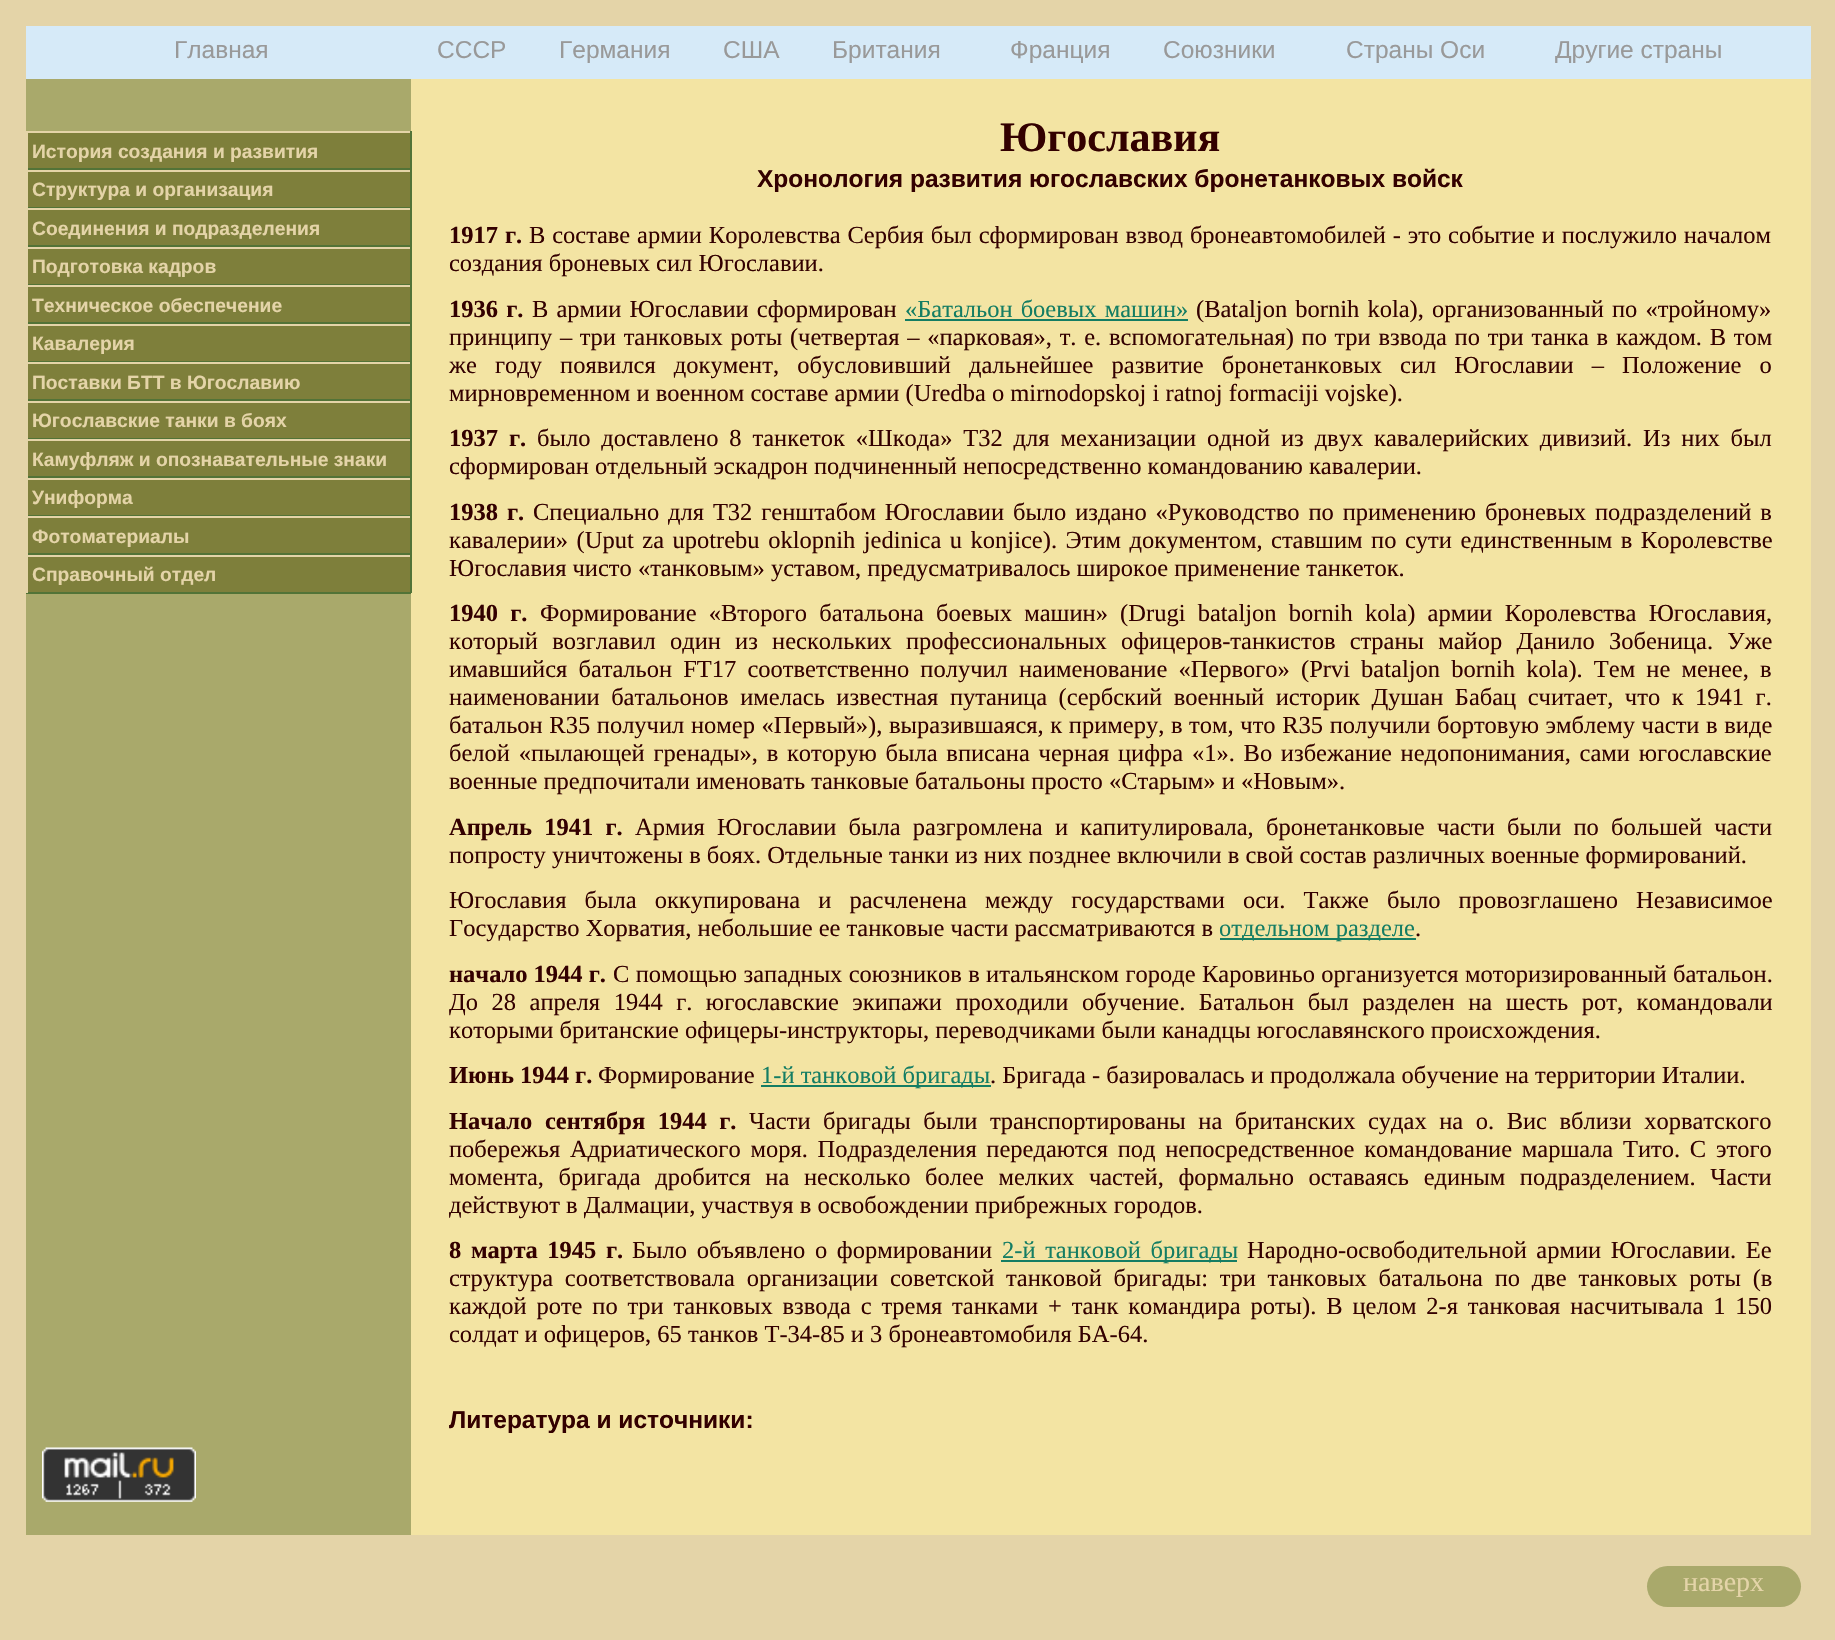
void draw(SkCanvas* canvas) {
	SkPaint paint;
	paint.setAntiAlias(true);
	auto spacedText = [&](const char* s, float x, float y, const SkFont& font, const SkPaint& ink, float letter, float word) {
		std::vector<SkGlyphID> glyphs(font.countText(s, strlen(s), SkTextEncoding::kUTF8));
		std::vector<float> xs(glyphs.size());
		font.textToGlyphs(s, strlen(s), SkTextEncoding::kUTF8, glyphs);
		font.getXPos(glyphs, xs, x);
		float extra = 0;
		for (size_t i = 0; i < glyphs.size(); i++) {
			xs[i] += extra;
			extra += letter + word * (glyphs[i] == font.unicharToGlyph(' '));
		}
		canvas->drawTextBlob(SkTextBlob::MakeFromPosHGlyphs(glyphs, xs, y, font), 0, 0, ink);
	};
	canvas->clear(0xffe4d4a8);
	paint.setColor(0xffd6eaf8);
	canvas->drawRect(SkRect::MakeXYWH(26, 26, 1785, 53), paint);
	SkFont f1(fontMgr->matchFamilyStyle("Liberation Sans", SkFontStyle::Normal()), 24.5);
	f1.setSubpixel(true);
	paint.setColor(0xff999999);
	canvas->drawString("Главная", 174, 58, f1, paint);
	canvas->drawString("СССР", 437, 58, f1, paint);
	canvas->drawString("Германия", 559, 58, f1, paint);
	canvas->drawString("США", 723, 58, f1, paint);
	canvas->drawString("Британия", 832, 58, f1, paint);
	canvas->drawString("Франция", 1010, 58, f1, paint);
	canvas->drawString("Союзники", 1163, 58, f1, paint);
	canvas->drawString("Страны Оси", 1346, 58, f1, paint);
	canvas->drawString("Другие страны", 1555, 58, f1, paint);
	paint.setColor(0xffa9a96b);
	canvas->drawRect(SkRect::MakeXYWH(26, 79, 385, 1456), paint);
	paint.setColor(0xff7e7f3b);
	canvas->drawRect(SkRect::MakeXYWH(28, 133, 382, 35), paint);
	paint.setColor(0xffe4d4a8);
	canvas->drawRect(SkRect::MakeXYWH(26, 131, 385, 2), paint);
	paint.setColor(0xfff3e4a3);
	canvas->drawRect(SkRect::MakeXYWH(411, 79, 1400, 1456), paint);
	paint.setColor(0xff527337);
	canvas->drawRect(SkRect::MakeXYWH(410, 131, 2, 39), paint);
	canvas->drawRect(SkRect::MakeXYWH(26, 168, 385, 2), paint);
	paint.setColor(0xffe4d4a8);
	canvas->drawRect(SkRect::MakeXYWH(26, 131, 2, 39), paint);
	SkFont f2(fontMgr->matchFamilyStyle("Liberation Sans", SkFontStyle::Bold()), 19.25);
	f2.setSubpixel(true);
	canvas->drawString("История создания и развития", 32, 158, f2, paint);
	paint.setColor(0xff7e7f3b);
	canvas->drawRect(SkRect::MakeXYWH(28, 172, 382, 35), paint);
	paint.setColor(0xffe4d4a8);
	canvas->drawRect(SkRect::MakeXYWH(26, 170, 385, 2), paint);
	paint.setColor(0xff527337);
	canvas->drawRect(SkRect::MakeXYWH(410, 170, 2, 38), paint);
	canvas->drawRect(SkRect::MakeXYWH(26, 207, 385, 1), paint);
	paint.setColor(0xffe4d4a8);
	canvas->drawRect(SkRect::MakeXYWH(26, 170, 2, 38), paint);
	canvas->drawString("Структура и организация", 32, 196, f2, paint);
	paint.setColor(0xff7e7f3b);
	canvas->drawRect(SkRect::MakeXYWH(28, 210, 382, 35), paint);
	paint.setColor(0xffe4d4a8);
	canvas->drawRect(SkRect::MakeXYWH(26, 208, 385, 2), paint);
	paint.setColor(0xff527337);
	canvas->drawRect(SkRect::MakeXYWH(410, 208, 2, 39), paint);
	canvas->drawRect(SkRect::MakeXYWH(26, 245, 385, 2), paint);
	paint.setColor(0xffe4d4a8);
	canvas->drawRect(SkRect::MakeXYWH(26, 208, 2, 39), paint);
	canvas->drawString("Соединения и подразделения", 32, 235, f2, paint);
	paint.setColor(0xff7e7f3b);
	canvas->drawRect(SkRect::MakeXYWH(28, 249, 382, 35), paint);
	paint.setColor(0xffe4d4a8);
	canvas->drawRect(SkRect::MakeXYWH(26, 247, 385, 2), paint);
	paint.setColor(0xff527337);
	canvas->drawRect(SkRect::MakeXYWH(410, 247, 2, 38), paint);
	canvas->drawRect(SkRect::MakeXYWH(26, 284, 385, 1), paint);
	paint.setColor(0xffe4d4a8);
	canvas->drawRect(SkRect::MakeXYWH(26, 247, 2, 38), paint);
	canvas->drawString("Подготовка кадров", 32, 273, f2, paint);
	paint.setColor(0xff7e7f3b);
	canvas->drawRect(SkRect::MakeXYWH(28, 287, 382, 35), paint);
	paint.setColor(0xffe4d4a8);
	canvas->drawRect(SkRect::MakeXYWH(26, 285, 385, 2), paint);
	paint.setColor(0xff527337);
	canvas->drawRect(SkRect::MakeXYWH(410, 285, 2, 39), paint);
	canvas->drawRect(SkRect::MakeXYWH(26, 322, 385, 2), paint);
	paint.setColor(0xffe4d4a8);
	canvas->drawRect(SkRect::MakeXYWH(26, 285, 2, 39), paint);
	canvas->drawString("Техническое обеспечение", 32, 312, f2, paint);
	paint.setColor(0xff7e7f3b);
	canvas->drawRect(SkRect::MakeXYWH(28, 326, 382, 35), paint);
	paint.setColor(0xffe4d4a8);
	canvas->drawRect(SkRect::MakeXYWH(26, 324, 385, 2), paint);
	paint.setColor(0xff527337);
	canvas->drawRect(SkRect::MakeXYWH(410, 324, 2, 38), paint);
	canvas->drawRect(SkRect::MakeXYWH(26, 361, 385, 1), paint);
	paint.setColor(0xffe4d4a8);
	canvas->drawRect(SkRect::MakeXYWH(26, 324, 2, 38), paint);
	canvas->drawString("Кавалерия", 32, 350, f2, paint);
	paint.setColor(0xff7e7f3b);
	canvas->drawRect(SkRect::MakeXYWH(28, 364, 382, 35), paint);
	paint.setColor(0xffe4d4a8);
	canvas->drawRect(SkRect::MakeXYWH(26, 362, 385, 2), paint);
	paint.setColor(0xff527337);
	canvas->drawRect(SkRect::MakeXYWH(410, 362, 2, 39), paint);
	canvas->drawRect(SkRect::MakeXYWH(26, 399, 385, 2), paint);
	paint.setColor(0xffe4d4a8);
	canvas->drawRect(SkRect::MakeXYWH(26, 362, 2, 39), paint);
	canvas->drawString("Поставки БТТ в Югославию", 32, 389, f2, paint);
	paint.setColor(0xff7e7f3b);
	canvas->drawRect(SkRect::MakeXYWH(28, 403, 382, 35), paint);
	paint.setColor(0xffe4d4a8);
	canvas->drawRect(SkRect::MakeXYWH(26, 401, 385, 2), paint);
	paint.setColor(0xff527337);
	canvas->drawRect(SkRect::MakeXYWH(410, 401, 2, 38), paint);
	canvas->drawRect(SkRect::MakeXYWH(26, 438, 385, 1), paint);
	paint.setColor(0xffe4d4a8);
	canvas->drawRect(SkRect::MakeXYWH(26, 401, 2, 38), paint);
	canvas->drawString("Югославские танки в боях", 32, 427, f2, paint);
	paint.setColor(0xff7e7f3b);
	canvas->drawRect(SkRect::MakeXYWH(28, 441, 382, 35), paint);
	paint.setColor(0xffe4d4a8);
	canvas->drawRect(SkRect::MakeXYWH(26, 439, 385, 2), paint);
	paint.setColor(0xff527337);
	canvas->drawRect(SkRect::MakeXYWH(410, 439, 2, 39), paint);
	canvas->drawRect(SkRect::MakeXYWH(26, 476, 385, 2), paint);
	paint.setColor(0xffe4d4a8);
	canvas->drawRect(SkRect::MakeXYWH(26, 439, 2, 39), paint);
	canvas->drawString("Камуфляж и опознавательные знаки", 32, 466, f2, paint);
	paint.setColor(0xff7e7f3b);
	canvas->drawRect(SkRect::MakeXYWH(28, 480, 382, 35), paint);
	paint.setColor(0xffe4d4a8);
	canvas->drawRect(SkRect::MakeXYWH(26, 478, 385, 2), paint);
	paint.setColor(0xff527337);
	canvas->drawRect(SkRect::MakeXYWH(410, 478, 2, 38), paint);
	canvas->drawRect(SkRect::MakeXYWH(26, 515, 385, 1), paint);
	paint.setColor(0xffe4d4a8);
	canvas->drawRect(SkRect::MakeXYWH(26, 478, 2, 38), paint);
	canvas->drawString("Униформа", 32, 504, f2, paint);
	paint.setColor(0xff7e7f3b);
	canvas->drawRect(SkRect::MakeXYWH(28, 518, 382, 35), paint);
	paint.setColor(0xffe4d4a8);
	canvas->drawRect(SkRect::MakeXYWH(26, 516, 385, 2), paint);
	paint.setColor(0xff527337);
	canvas->drawRect(SkRect::MakeXYWH(410, 516, 2, 39), paint);
	canvas->drawRect(SkRect::MakeXYWH(26, 553, 385, 2), paint);
	paint.setColor(0xffe4d4a8);
	canvas->drawRect(SkRect::MakeXYWH(26, 516, 2, 39), paint);
	canvas->drawString("Фотоматериалы", 32, 543, f2, paint);
	paint.setColor(0xff7e7f3b);
	canvas->drawRect(SkRect::MakeXYWH(28, 557, 382, 35), paint);
	paint.setColor(0xffe4d4a8);
	canvas->drawRect(SkRect::MakeXYWH(26, 555, 385, 2), paint);
	paint.setColor(0xff527337);
	canvas->drawRect(SkRect::MakeXYWH(410, 555, 2, 38), paint);
	canvas->drawRect(SkRect::MakeXYWH(26, 592, 385, 2), paint);
	paint.setColor(0xffe4d4a8);
	canvas->drawRect(SkRect::MakeXYWH(26, 555, 2, 38), paint);
	canvas->drawString("Справочный отдел", 32, 581, f2, paint);
	SkFont f3(fontMgr->matchFamilyStyle("Liberation Serif", SkFontStyle::Bold()), 42);
	f3.setSubpixel(true);
	paint.setColor(0xff330000);
	canvas->drawString("Югославия", 1000, 151, f3, paint);
	SkFont f4(fontMgr->matchFamilyStyle("Liberation Sans", SkFontStyle::Bold()), 24.5);
	f4.setSubpixel(true);
	canvas->drawString("Хронология развития югославских бронетанковых войск", 757, 187, f4, paint);
	SkFont f5(fontMgr->matchFamilyStyle("Liberation Serif", SkFontStyle::Bold()), 24.5);
	f5.setSubpixel(true);
	spacedText("1917 г.", 449, 243, f5, paint, 0, 0.75);
	SkFont f6(fontMgr->matchFamilyStyle("Liberation Serif", SkFontStyle::Normal()), 24.5);
	f6.setSubpixel(true);
	spacedText("В составе армии Королевства Сербия был сформирован взвод бронеавтомобилей - это событие и послужило началом", 529, 243, f6, paint, 0, 0.75);
	canvas->drawString("создания броневых сил Югославии.", 449, 271, f6, paint);
	spacedText("1936 г.", 449, 317, f5, paint, 0, 2);
	spacedText("В армии Югославии сформирован", 532, 317, f6, paint, 0, 2);
	paint.setColor(0xff147d63);
	spacedText("«Батальон боевых машин»", 905, 317, f6, paint, 0, 2);
	canvas->drawRect(SkRect::MakeXYWH(905, 319, 283, 2), paint);
	paint.setColor(0xff330000);
	spacedText("(Вataljon bornih kola), организованный по «тройному»", 1196, 317, f6, paint, 0, 2);
	spacedText("принципу – три танковых роты (четвертая – «парковая», т. е. вспомогательная) по три взвода по три танка в каждом. В том", 449, 345, f6, paint, 0, 1.6);
	spacedText("же году появился документ, обусловивший дальнейшее развитие бронетанковых сил Югославии – Положение о", 449, 373, f6, paint, 0, 12);
	canvas->drawString("мирновременном и военном составе армии (Uredba o mirnodopskoj i ratnoj formaciji vojske).", 449, 401, f6, paint);
	spacedText("1937 г.", 449, 446, f5, paint, 0, 4.75);
	spacedText("было доставлено 8 танкеток «Шкода» Т32 для механизации одной из двух кавалерийских дивизий. Из них был", 537, 446, f6, paint, 0, 4.75);
	canvas->drawString("сформирован отдельный эскадрон подчиненный непосредственно командованию кавалерии.", 449, 474, f6, paint);
	spacedText("1938 г.", 449, 520, f5, paint, 0, 2.75);
	spacedText("Специально для Т32 генштабом Югославии было издано «Руководство по применению броневых подразделений в", 533, 520, f6, paint, 0, 2.75);
	spacedText("кавалерии» (Uput za upotrebu oklopnih jedinica u konjice). Этим документом, ставшим по сути единственным в Королевстве", 449, 548, f6, paint, 0, 2.4);
	canvas->drawString("Югославия чисто «танковым» уставом, предусматривалось широкое применение танкеток.", 449, 576, f6, paint);
	spacedText("1940 г.", 449, 621, f5, paint, 0, 6.1);
	spacedText("Формирование «Второго батальона боевых машин» (Drugi bataljon bornih kola) армии Королевства Югославия,", 540, 621, f6, paint, 0, 6.1);
	spacedText("который возглавил один из нескольких профессиональных офицеров-танкистов страны майор Данило Зобеница. Уже", 449, 649, f6, paint, 0, 8.1);
	spacedText("имавшийся батальон FT17 соответственно получил наименование «Первого» (Prvi bataljon bornih kola). Тем не менее, в", 449, 677, f6, paint, 0, 5);
	spacedText("наименовании батальонов имелась известная путаница (сербский военный историк Душан Бабац считает, что к 1941 г.", 449, 705, f6, paint, 0, 5.4);
	spacedText("батальон R35 получил номер «Первый»), выразившаяся, к примеру, в том, что R35 получили бортовую эмблему части в виде", 449, 733, f6, paint, 0, 0.5);
	spacedText("белой «пылающей гренады», в которую была вписана черная цифра «1». Во избежание недопонимания, сами югославские", 449, 761, f6, paint, 0, 2.6);
	canvas->drawString("военные предпочитали именовать танковые батальоны просто «Старым» и «Новым».", 449, 789, f6, paint);
	spacedText("Апрель 1941 г.", 449, 835, f5, paint, 0, 6.1);
	spacedText("Армия Югославии была разгромлена и капитулировала, бронетанковые части были по большей части", 635, 835, f6, paint, 0, 6.1);
	canvas->drawString("попросту уничтожены в боях. Отдельные танки из них позднее включили в свой состав различных военные формирований.", 449, 863, f6, paint);
	spacedText("Югославия была оккупирована и расчленена между государствами оси. Также было провозглашено Независимое", 449, 908, f6, paint, 0, 12);
	canvas->drawString("Государство Хорватия, небольшие ее танковые части рассматриваются в", 449, 936, f6, paint);
	paint.setColor(0xff147d63);
	canvas->drawRect(SkRect::MakeXYWH(1220, 938, 196, 2), paint);
	canvas->drawString("отдельном разделе", 1219, 936, f6, paint);
	paint.setColor(0xff330000);
	canvas->drawString(".", 1415, 936, f6, paint);
	canvas->drawString("начало 1944 г.", 449, 982, f5, paint);
	spacedText("С помощью западных союзников в итальянском городе Каровиньо организуется моторизированный батальон.", 613, 982, f6, paint, 0, 0.25);
	spacedText("До 28 апреля 1944 г. югославские экипажи проходили обучение. Батальон был разделен на шесть рот, командовали", 449, 1010, f6, paint, 0, 7.4);
	canvas->drawString("которыми британские офицеры-инструкторы, переводчиками были канадцы югославянского происхождения.", 449, 1038, f6, paint);
	canvas->drawString("Июнь 1944 г.", 449, 1083, f5, paint);
	canvas->drawString("Формирование", 598, 1083, f6, paint);
	paint.setColor(0xff147d63);
	canvas->drawRect(SkRect::MakeXYWH(761, 1085, 230, 2), paint);
	canvas->drawString("1-й танковой бригады", 761, 1083, f6, paint);
	paint.setColor(0xff330000);
	canvas->drawString(". Бригада - базировалась и продолжала обучение на территории Италии.", 990, 1083, f6, paint);
	spacedText("Начало сентября 1944 г.", 449, 1129, f5, paint, 0, 6.4);
	spacedText("Части бригады были транспортированы на британских судах на о. Вис вблизи хорватского", 749, 1129, f6, paint, 0, 6.4);
	spacedText("побережья Адриатического моря. Подразделения передаются под непосредственное командование маршала Тито. С этого", 449, 1157, f6, paint, 0, 3.6);
	spacedText("момента, бригада дробится на несколько более мелких частей, формально оставаясь единым подразделением. Части", 449, 1185, f6, paint, 0, 8.5);
	canvas->drawString("действуют в Далмации, участвуя в освобождении прибрежных городов.", 449, 1213, f6, paint);
	spacedText("8 марта 1945 г.", 449, 1258, f5, paint, 0, 3.5);
	spacedText("Было объявлено о формировании", 632, 1258, f6, paint, 0, 3.5);
	paint.setColor(0xff147d63);
	canvas->drawRect(SkRect::MakeXYWH(1001, 1260, 236, 2), paint);
	spacedText("2-й танковой бригады", 1002, 1258, f6, paint, 0, 3.5);
	paint.setColor(0xff330000);
	spacedText("Народно-освободительной армии Югославии. Ее", 1247, 1258, f6, paint, 0, 3.5);
	spacedText("структура соответствовала организации советской танковой бригады: три танковых батальона по две танковых роты (в", 449, 1286, f6, paint, 0, 5.6);
	spacedText("каждой роте по три танковых взвода с тремя танками + танк командира роты). В целом 2-я танковая насчитывала 1 150", 449, 1314, f6, paint, 0, 3.75);
	canvas->drawString("солдат и офицеров, 65 танков Т-34-85 и 3 бронеавтомобиля БА-64.", 449, 1342, f6, paint);
	canvas->drawString("Литература и источники:", 449, 1428, f4, paint);
	canvas->drawImageRect(SkImages::DeferredFromEncodedData(SkData::MakeFromFileName("img1.png")), SkRect::MakeXYWH(42, 1447, 154, 55), SkSamplingOptions());
	paint.setColor(0xffa9a96b);
	canvas->drawRoundRect(SkRect::MakeXYWH(1647, 1566, 154, 41), 20.5, 20.5, paint);
	SkFont f7(fontMgr->matchFamilyStyle("Liberation Serif", SkFontStyle::Normal()), 28);
	f7.setSubpixel(true);
	paint.setColor(0xffe4d4a8);
	canvas->drawString("наверх", 1683, 1591, f7, paint);
}
